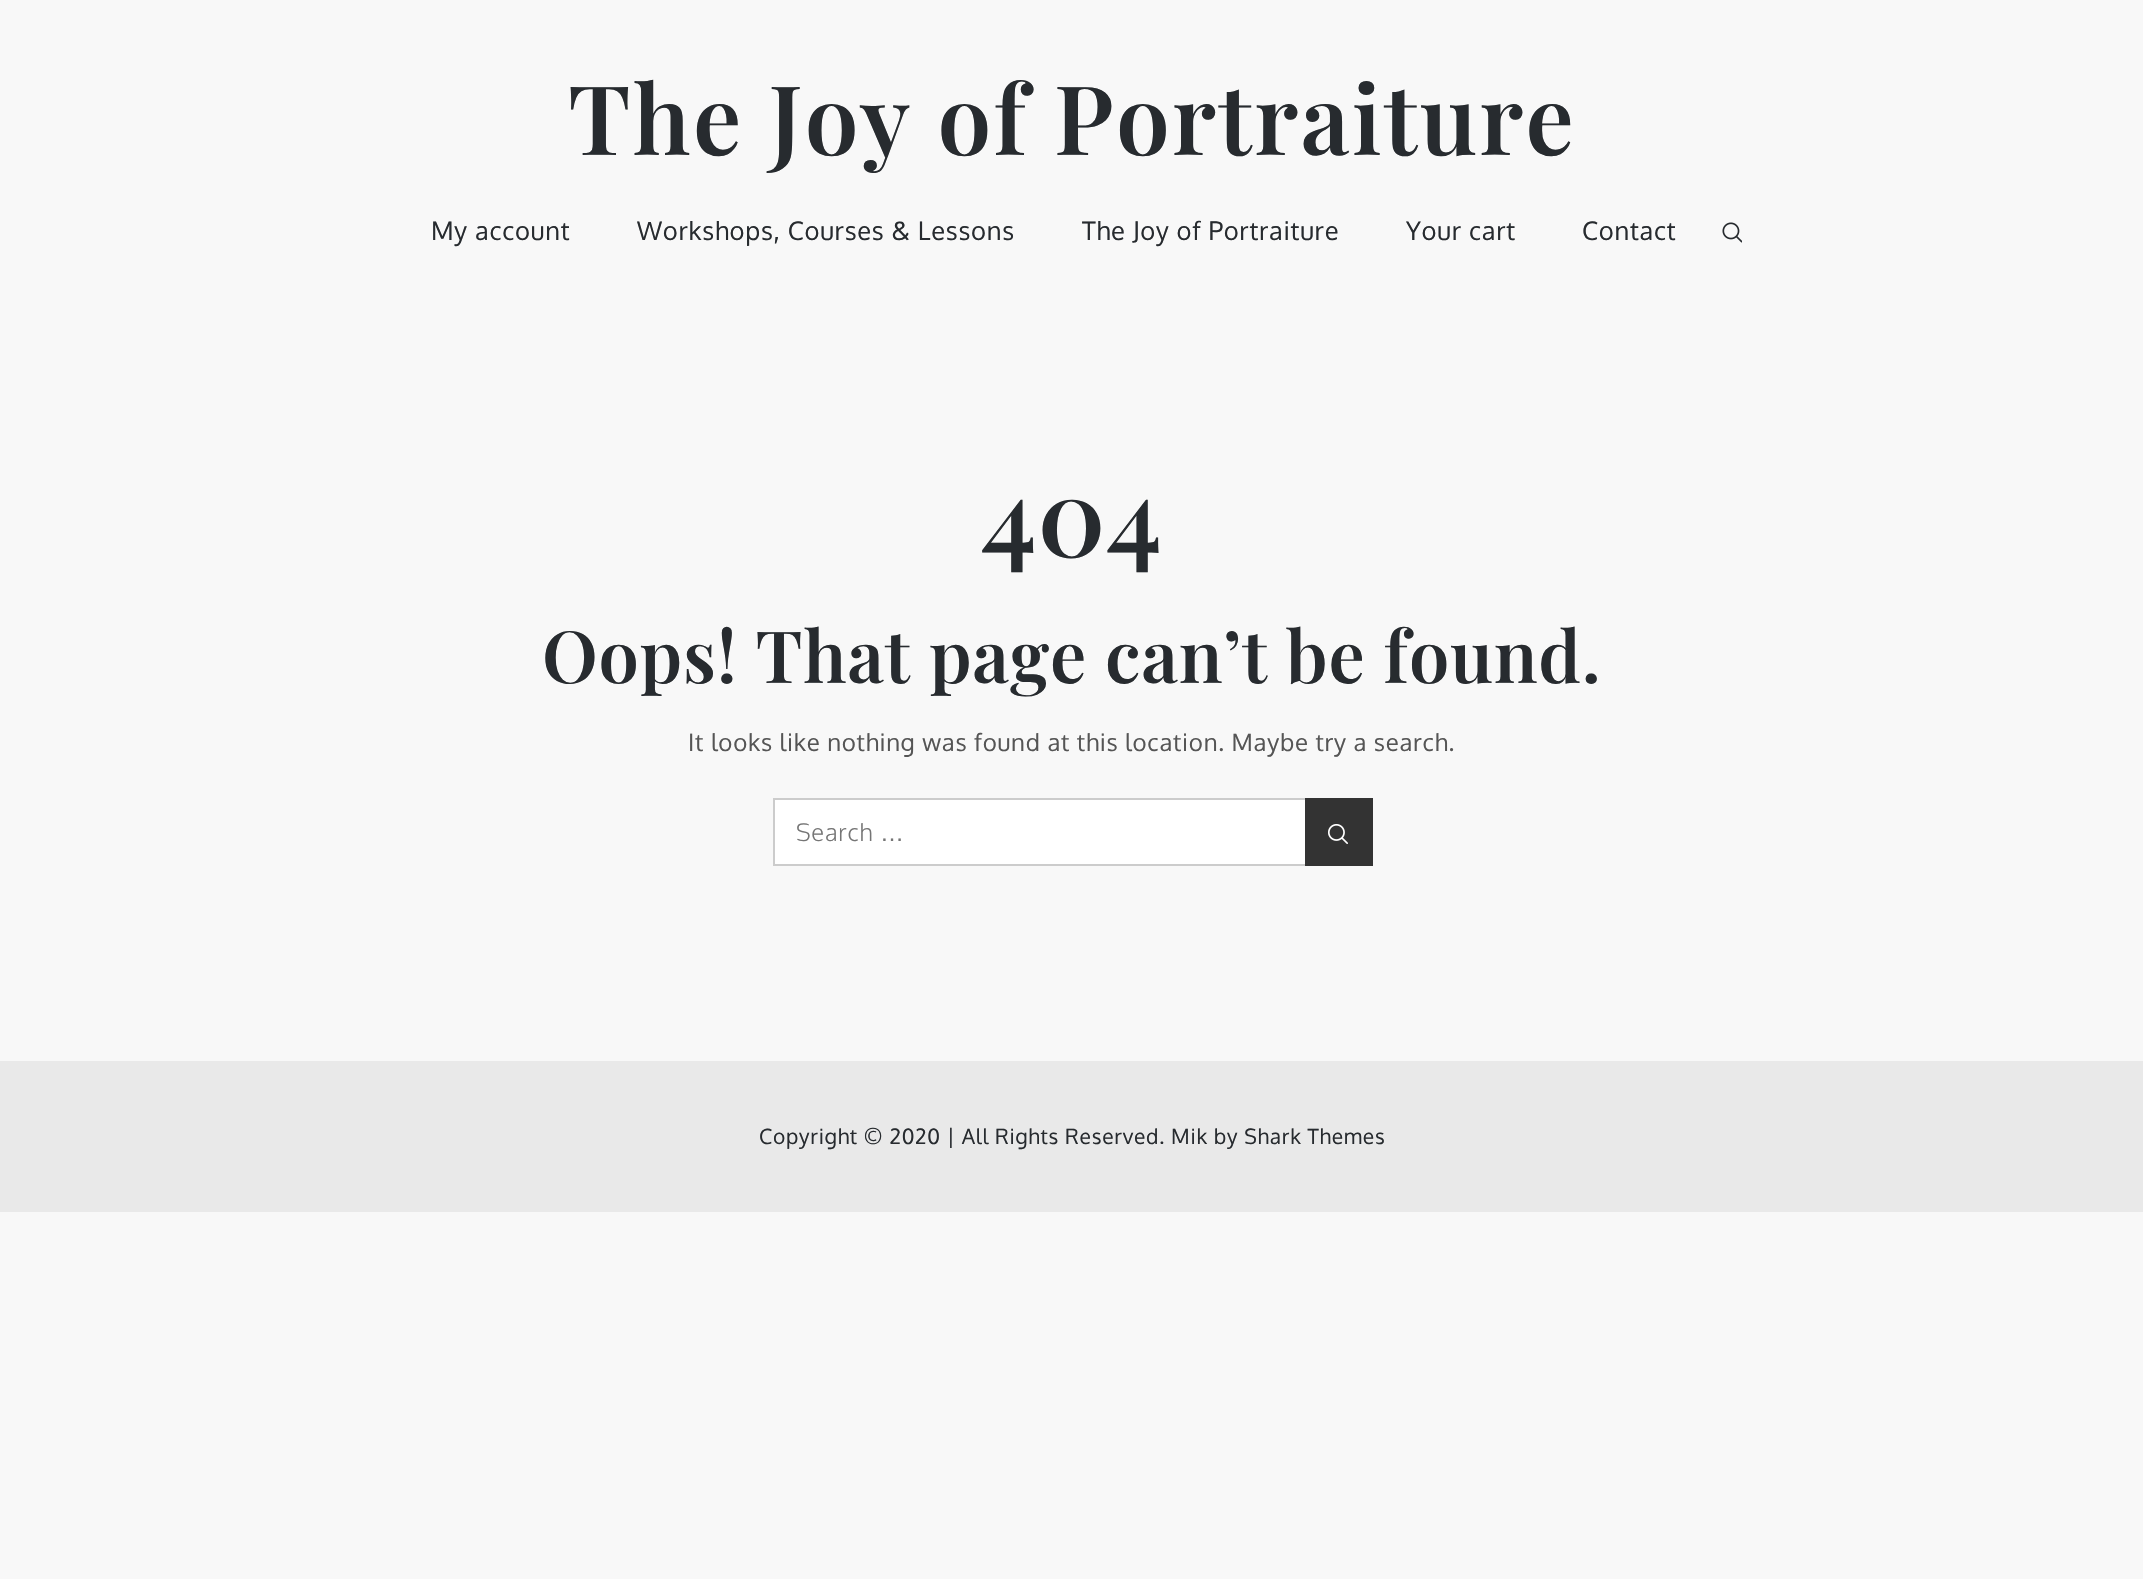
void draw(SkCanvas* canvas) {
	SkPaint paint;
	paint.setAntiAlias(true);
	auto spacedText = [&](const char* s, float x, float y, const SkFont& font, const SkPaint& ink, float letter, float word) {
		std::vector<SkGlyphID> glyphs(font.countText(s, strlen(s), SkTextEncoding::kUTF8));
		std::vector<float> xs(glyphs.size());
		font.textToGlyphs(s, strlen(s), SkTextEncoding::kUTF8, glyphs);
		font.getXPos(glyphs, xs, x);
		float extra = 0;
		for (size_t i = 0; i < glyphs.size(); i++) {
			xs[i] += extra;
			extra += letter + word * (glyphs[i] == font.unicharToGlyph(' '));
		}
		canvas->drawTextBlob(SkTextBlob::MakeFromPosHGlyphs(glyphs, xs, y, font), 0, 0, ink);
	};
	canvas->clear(0xfff8f8f8);
	SkFont f1(fontMgr->matchFamilyStyle("Playfair Display", SkFontStyle(600, SkFontStyle::kNormal_Width, SkFontStyle::kUpright_Slant)), 96);
	f1.setSubpixel(true);
	paint.setColor(0xff272b2f);
	spacedText("The Joy of Portraiture", 568, 155, f1, paint, 2.25, 0);
	SkFont f2(fontMgr->matchFamilyStyle("Oxygen", SkFontStyle::Normal()), 25.5);
	f2.setSubpixel(true);
	spacedText("My account", 431, 240, f2, paint, 0.75, 0);
	spacedText("Workshops, Courses & Lessons", 637, 240, f2, paint, 0.75, 0);
	spacedText("The Joy of Portraiture", 1082, 240, f2, paint, 0.75, 0);
	spacedText("Your cart", 1406, 240, f2, paint, 0.75, 0);
	spacedText("Contact", 1582, 240, f2, paint, 0.75, 0);
	canvas->drawImageRect(SkImages::DeferredFromEncodedData(SkData::MakeFromFileName("img1.png")), SkRect::MakeXYWH(1722, 222, 20, 21), SkSamplingOptions());
	SkFont f3(fontMgr->matchFamilyStyle("Playfair Display", SkFontStyle(600, SkFontStyle::kNormal_Width, SkFontStyle::kUpright_Slant)), 108);
	f3.setSubpixel(true);
	spacedText("404", 981, 557, f3, paint, 0.75, 0);
	SkFont f4(fontMgr->matchFamilyStyle("Playfair Display", SkFontStyle(600, SkFontStyle::kNormal_Width, SkFontStyle::kUpright_Slant)), 72);
	f4.setSubpixel(true);
	spacedText("Oops! That page can’t be found.", 542, 683, f4, paint, 0.75, 0);
	SkFont f5(fontMgr->matchFamilyStyle("Oxygen", SkFontStyle::Normal()), 24);
	f5.setSubpixel(true);
	paint.setColor(0xff555555);
	spacedText("It looks like nothing was found at this location. Maybe try a search.", 688, 751, f5, paint, 0.75, 0);
	paint.setColor(0xffffffff);
	canvas->drawRect(SkRect::MakeXYWH(775, 800, 530, 64), paint);
	paint.setStroke(true);
	paint.setStrokeWidth(2);
	paint.setColor(0xffcccccc);
	canvas->drawRect(SkRect::MakeXYWH(774, 799, 598, 66), paint);
	SkFont f6(fontMgr->matchFamilyStyle("Oxygen", SkFontStyle(300, SkFontStyle::kNormal_Width, SkFontStyle::kUpright_Slant)), 24);
	f6.setSubpixel(true);
	paint.setStroke(false);
	paint.setColor(0xff757575);
	spacedText("Search", 796, 841, f6, paint, 0.75, 0);
	SkFont f7(fontMgr->matchFamilyStyle("Liberation Sans", SkFontStyle::Normal()), 24);
	f7.setSubpixel(true);
	spacedText("…", 880, 841, f7, paint, 0.75, 0);
	paint.setColor(0xff333333);
	canvas->drawRect(SkRect::MakeXYWH(1305, 798, 68, 68), paint);
	canvas->drawImageRect(SkImages::DeferredFromEncodedData(SkData::MakeFromFileName("img2.png")), SkRect::MakeXYWH(1328, 824, 20, 20), SkSamplingOptions());
	paint.setColor(0xffe9e9e9);
	canvas->drawRect(SkRect::MakeXYWH(0, 1061, 2143, 151), paint);
	SkFont f8(fontMgr->matchFamilyStyle("Oxygen", SkFontStyle::Normal()), 21);
	f8.setSubpixel(true);
	paint.setColor(0xff272b2f);
	spacedText("Copyright © 2020 | All Rights Reserved. Mik by Shark Themes", 759, 1144, f8, paint, 0.75, 0);
}
